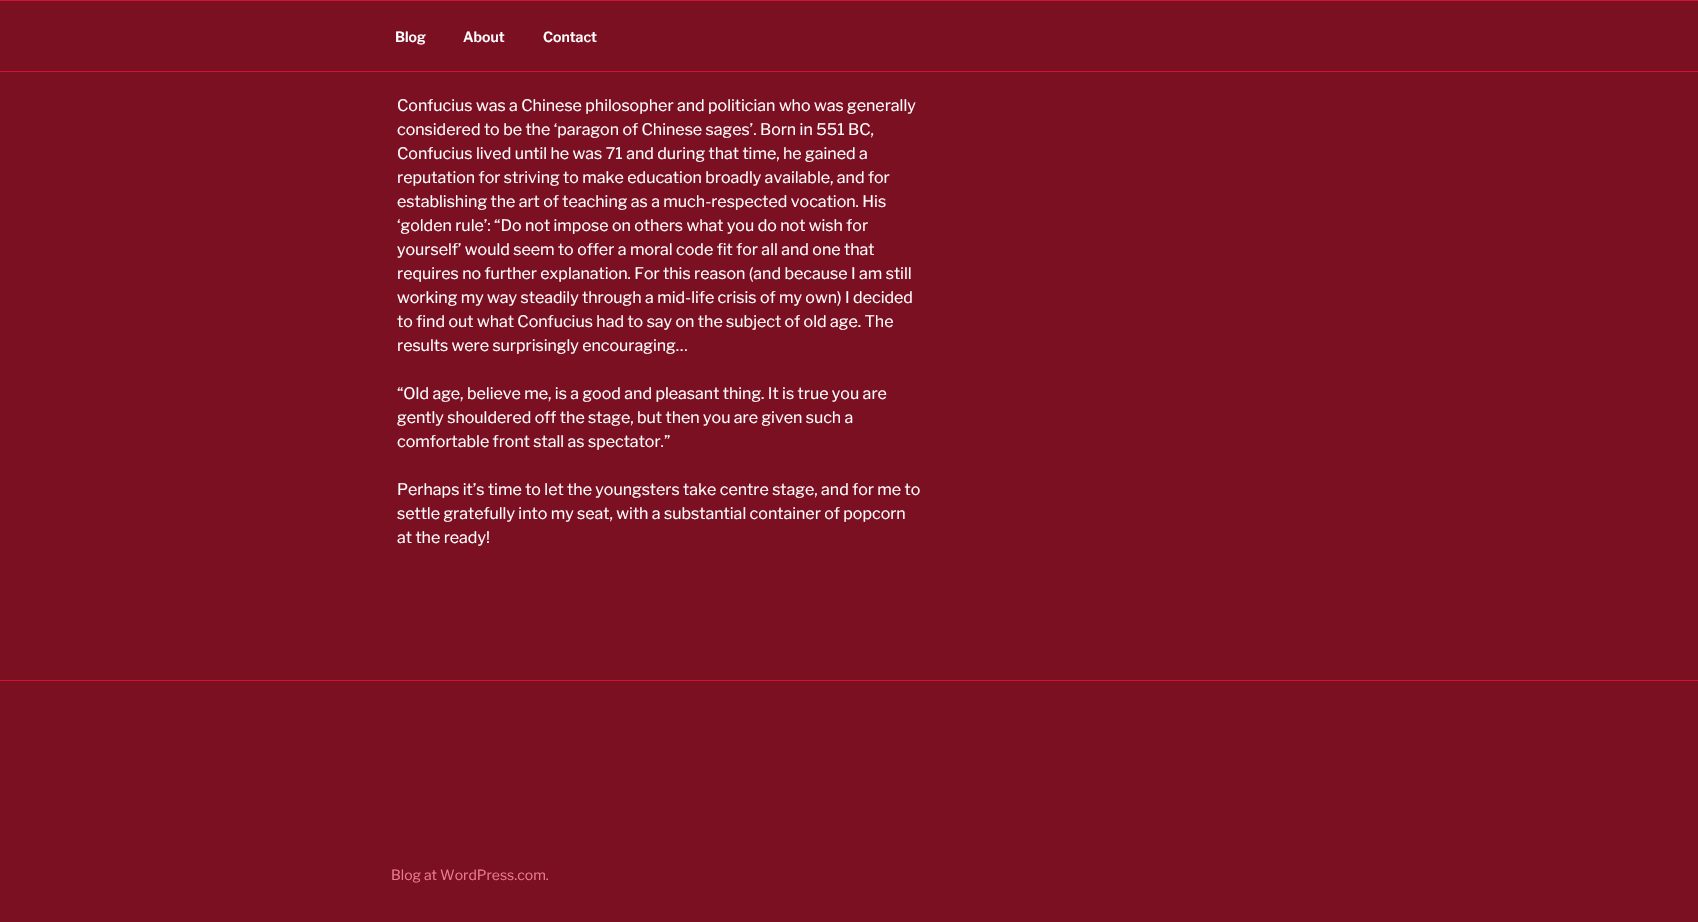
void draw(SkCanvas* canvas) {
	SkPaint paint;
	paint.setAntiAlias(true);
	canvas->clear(0xff7b1023);
	paint.setColor(0xffd41134);
	canvas->drawRect(SkRect::MakeXYWH(0, 0, 1698, 1), paint);
	canvas->drawRect(SkRect::MakeXYWH(0, 71, 1698, 1), paint);
	SkFont f1(fontMgr->matchFamilyStyle("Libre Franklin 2", SkFontStyle(100, SkFontStyle::kNormal_Width, SkFontStyle::kUpright_Slant)), 14);
	f1.setSubpixel(true);
	paint.setColor(0xffffffff);
	canvas->drawString("Blog", 395, 42, f1, paint);
	canvas->drawString("About", 463, 42, f1, paint);
	canvas->drawString("Contact", 543, 42, f1, paint);
	SkFont f2(fontMgr->matchFamilyStyle("Libre Franklin", SkFontStyle(100, SkFontStyle::kNormal_Width, SkFontStyle::kUpright_Slant)), 16);
	f2.setSubpixel(true);
	canvas->drawString("Confucius was a Chinese philosopher and politician who was generally", 397, 111, f2, paint);
	canvas->drawString("considered to be the ‘paragon of Chinese sages’. Born in 551 BC,", 397, 135, f2, paint);
	canvas->drawString("Confucius lived until he was 71 and during that time, he gained a", 397, 159, f2, paint);
	canvas->drawString("reputation for striving to make education broadly available, and for", 397, 183, f2, paint);
	canvas->drawString("establishing the art of teaching as a much-respected vocation. His", 397, 207, f2, paint);
	canvas->drawString("‘golden rule’: “Do not impose on others what you do not wish for", 397, 231, f2, paint);
	canvas->drawString("yourself’ would seem to offer a moral code fit for all and one that", 397, 255, f2, paint);
	canvas->drawString("requires no further explanation. For this reason (and because I am still", 397, 279, f2, paint);
	canvas->drawString("working my way steadily through a mid-life crisis of my own) I decided", 397, 303, f2, paint);
	canvas->drawString("to find out what Confucius had to say on the subject of old age. The", 397, 327, f2, paint);
	canvas->drawString("results were surprisingly encouraging…", 397, 351, f2, paint);
	canvas->drawString("“Old age, believe me, is a good and pleasant thing. It is true you are", 397, 399, f2, paint);
	canvas->drawString("gently shouldered off the stage, but then you are given such a", 397, 423, f2, paint);
	canvas->drawString("comfortable front stall as spectator.”", 397, 447, f2, paint);
	canvas->drawString("Perhaps it’s time to let the youngsters take centre stage, and for me to", 397, 495, f2, paint);
	canvas->drawString("settle gratefully into my seat, with a substantial container of popcorn", 397, 519, f2, paint);
	canvas->drawString("at the ready!", 397, 543, f2, paint);
	paint.setColor(0xffd41134);
	canvas->drawRect(SkRect::MakeXYWH(0, 680, 1698, 1), paint);
	SkFont f3(fontMgr->matchFamilyStyle("Libre Franklin", SkFontStyle(100, SkFontStyle::kNormal_Width, SkFontStyle::kUpright_Slant)), 14);
	f3.setSubpixel(true);
	paint.setColor(0xffee7b8e);
	canvas->drawString("Blog at WordPress.com.", 391, 880, f3, paint);
}
